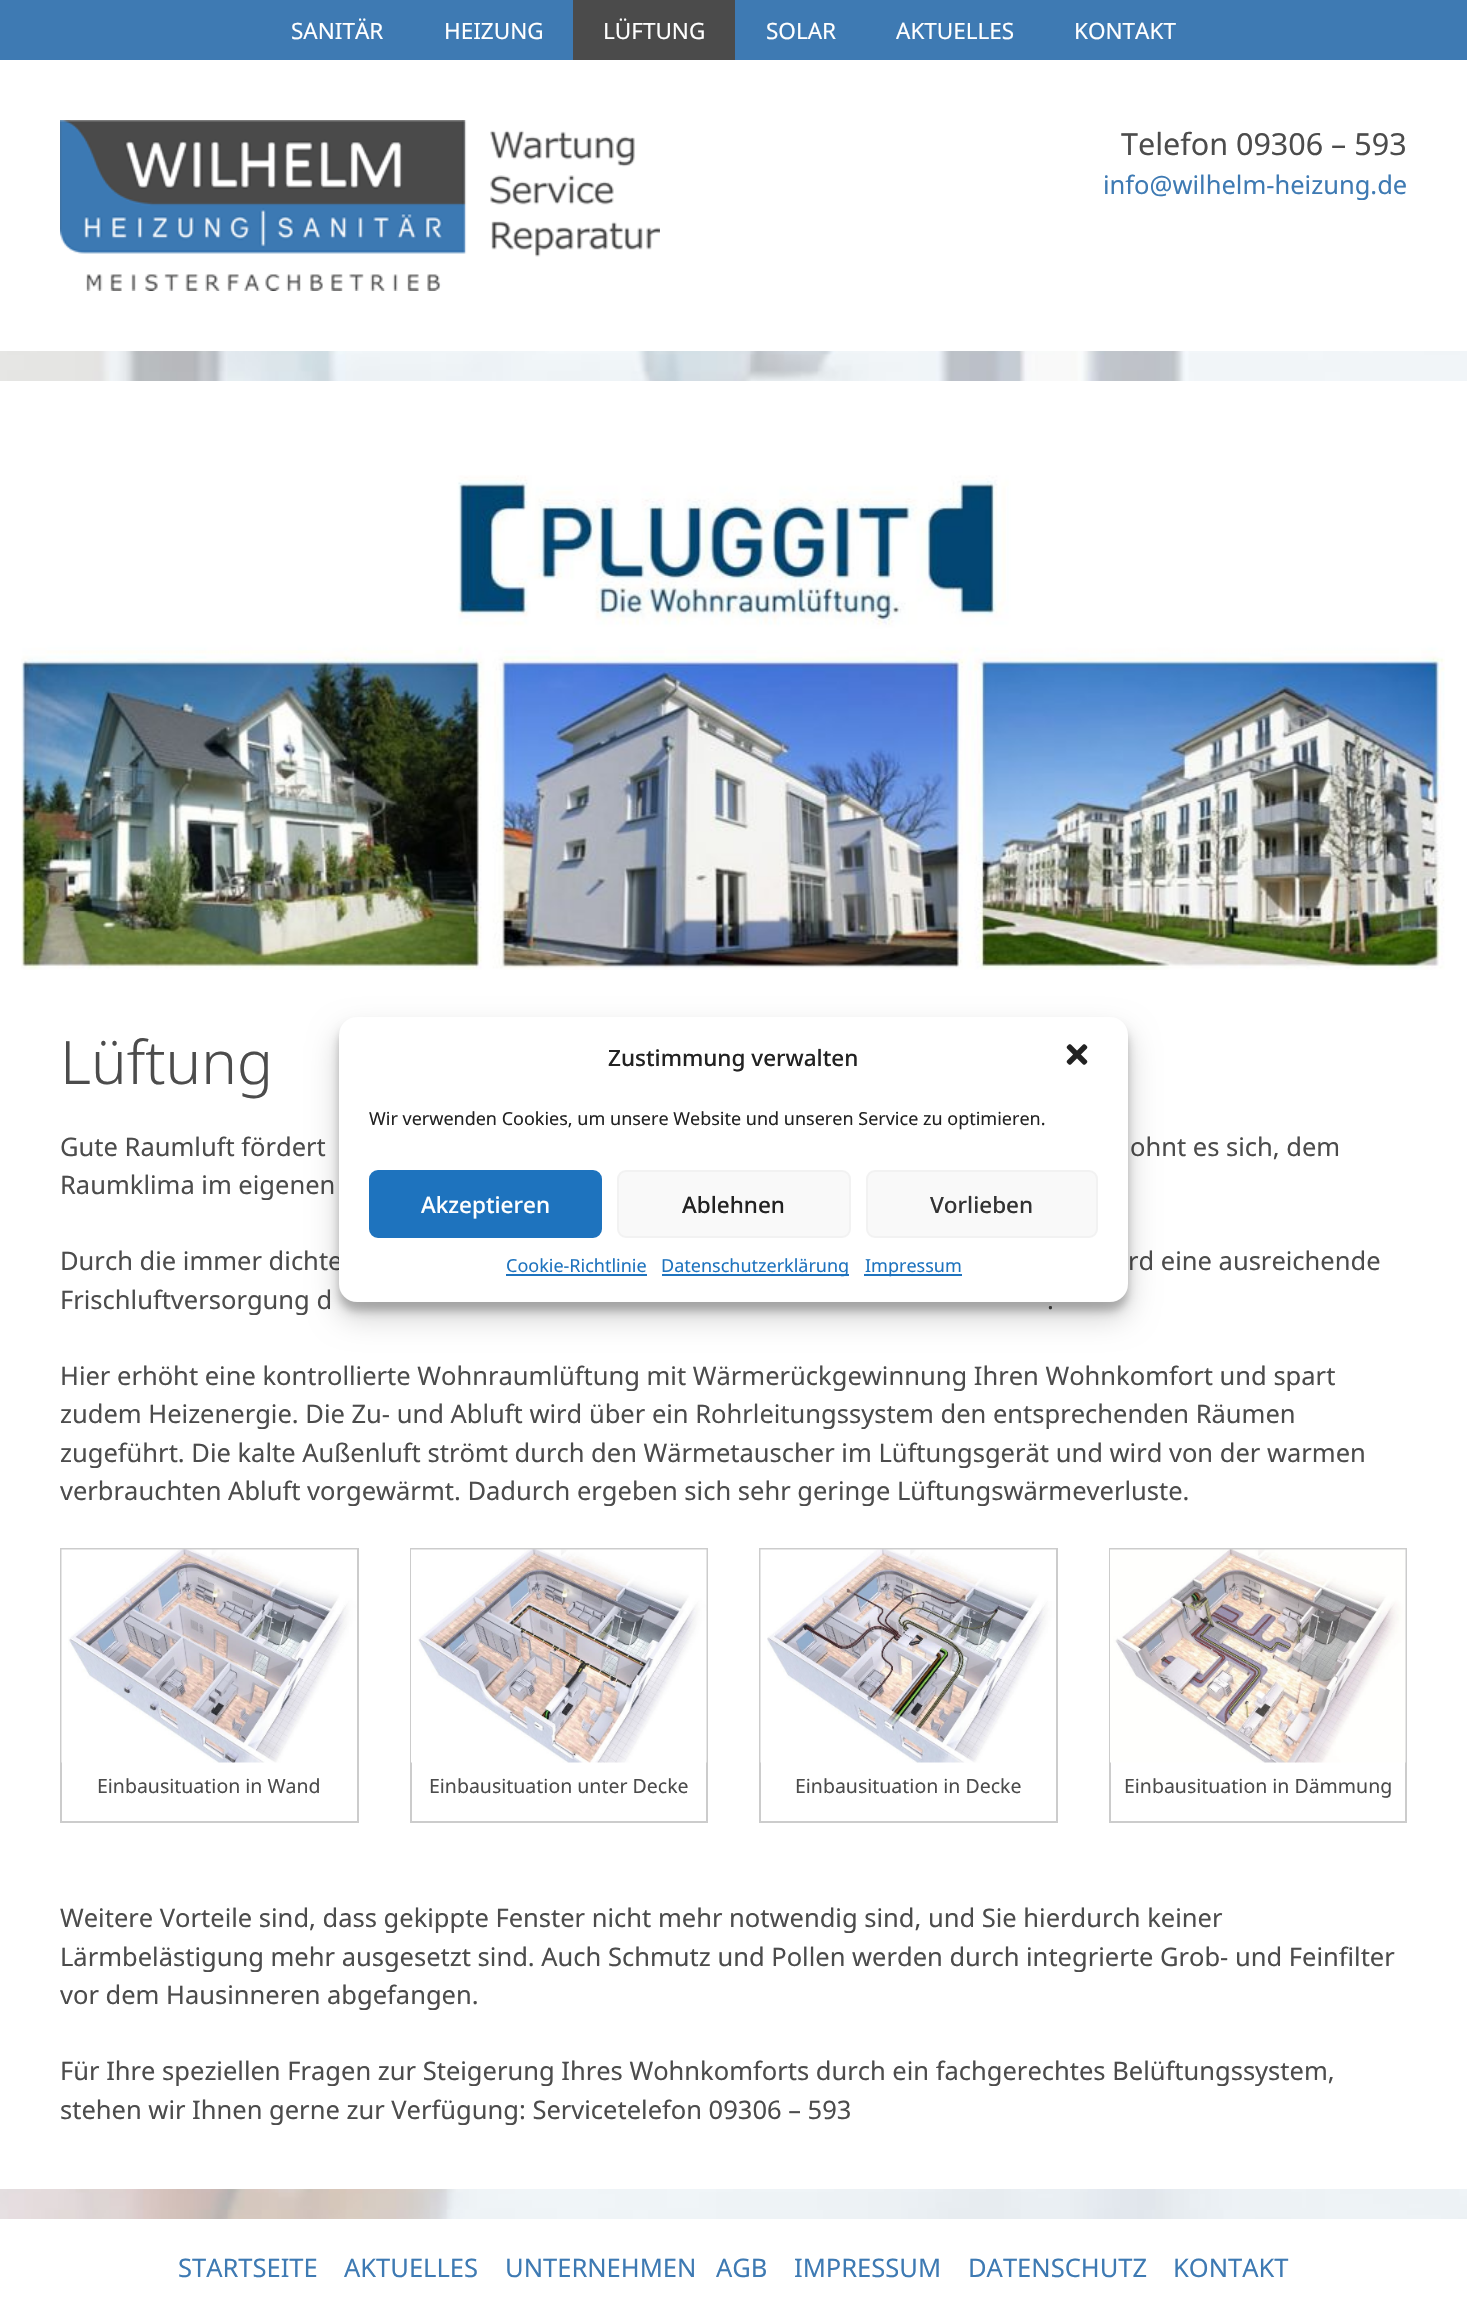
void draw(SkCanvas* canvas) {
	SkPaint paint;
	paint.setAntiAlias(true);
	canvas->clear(0xffffffff);
	canvas->drawImageRect(SkImages::DeferredFromEncodedData(SkData::MakeFromFileName("img1.png")), SkRect::MakeXYWH(0, 351, 1467, 1868), SkSamplingOptions());
	paint.setColor(0xff3e7ab3);
	canvas->drawRect(SkRect::MakeXYWH(0, 0, 1467, 60), paint);
	SkFont f1(fontMgr->matchFamilyStyle("Noto Sans", SkFontStyle::Normal()), 22.5);
	f1.setSubpixel(true);
	paint.setColor(0xffffffff);
	canvas->drawString("SANITÄR", 291, 39, f1, paint);
	canvas->drawString("HEIZUNG", 444, 39, f1, paint);
	paint.setColor(0xff4b4b4b);
	canvas->drawRect(SkRect::MakeXYWH(573, 0, 162, 60), paint);
	paint.setColor(0xffffffff);
	canvas->drawString("LÜFTUNG", 603, 39, f1, paint);
	canvas->drawString("SOLAR", 766, 39, f1, paint);
	canvas->drawString("AKTUELLES", 896, 39, f1, paint);
	canvas->drawString("KONTAKT", 1074, 39, f1, paint);
	canvas->drawImageRect(SkImages::DeferredFromEncodedData(SkData::MakeFromFileName("img2.png")), SkRect::MakeXYWH(60, 120, 600, 171), SkSamplingOptions());
	SkFont f2(fontMgr->matchFamilyStyle("Noto Sans", SkFontStyle::Normal()), 30.5);
	f2.setSubpixel(true);
	paint.setColor(0xff4c4c4c);
	canvas->drawString("Telefon 09306 – 593", 1121, 155, f2, paint);
	SkFont f3(fontMgr->matchFamilyStyle("Noto Sans", SkFontStyle::Normal()), 25.5);
	f3.setSubpixel(true);
	paint.setColor(0xff3e7ab3);
	canvas->drawString("info@wilhelm-heizung.de", 1103, 194, f3, paint);
	paint.setColor(0xffffffff);
	canvas->drawRect(SkRect::MakeXYWH(0, 381, 1467, 1808), paint);
	canvas->drawImageRect(SkImages::DeferredFromEncodedData(SkData::MakeFromFileName("img3.png")), SkRect::MakeXYWH(21, 475, 1424, 495), SkSamplingOptions());
	SkFont f4(fontMgr->matchFamilyStyle("Noto Sans", SkFontStyle(300, SkFontStyle::kNormal_Width, SkFontStyle::kUpright_Slant)), 60);
	f4.setSubpixel(true);
	paint.setColor(0xff4c4c4c);
	canvas->drawString("Lüftung", 60, 1084, f4, paint);
	canvas->drawString("Gute Raumluft fördert", 60, 1156, f3, paint);
	canvas->drawString("ohnt es sich, dem", 1130, 1156, f3, paint);
	canvas->drawString("Raumklima im eigenen", 60, 1194, f3, paint);
	canvas->drawString("Durch die immer dichte", 60, 1270, f3, paint);
	canvas->drawString("rd eine ausreichende", 1128, 1270, f3, paint);
	canvas->drawString("Frischluftversorgung d", 60, 1309, f3, paint);
	canvas->drawString(".", 1047, 1309, f3, paint);
	canvas->drawString("Hier erhöht eine kontrollierte Wohnraumlüftung mit Wärmerückgewinnung Ihren Wohnkomfort und spart", 60, 1385, f3, paint);
	canvas->drawString("zudem Heizenergie. Die Zu- und Abluft wird über ein Rohrleitungssystem den entsprechenden Räumen", 60, 1423, f3, paint);
	canvas->drawString("zugeführt. Die kalte Außenluft strömt durch den Wärmetauscher im Lüftungsgerät und wird von der warmen", 60, 1462, f3, paint);
	canvas->drawString("verbrauchten Abluft vorgewärmt. Dadurch ergeben sich sehr geringe Lüftungswärmeverluste.", 60, 1500, f3, paint);
	paint.setStroke(true);
	paint.setStrokeWidth(2);
	paint.setColor(0xffcccccc);
	canvas->drawRect(SkRect::MakeXYWH(61, 1549, 297, 273), paint);
	canvas->drawImageRect(SkImages::DeferredFromEncodedData(SkData::MakeFromFileName("img4.png")), SkRect::MakeXYWH(61, 1549, 296, 214), SkSamplingOptions());
	SkFont f5(fontMgr->matchFamilyStyle("Noto Sans", SkFontStyle::Normal()), 19.5);
	f5.setSubpixel(true);
	paint.setStroke(false);
	paint.setColor(0xff4c4c4c);
	canvas->drawString("Einbausituation in Wand", 97, 1793, f5, paint);
	paint.setStroke(true);
	paint.setColor(0xffcccccc);
	canvas->drawRect(SkRect::MakeXYWH(411, 1549, 296, 273), paint);
	canvas->drawImageRect(SkImages::DeferredFromEncodedData(SkData::MakeFromFileName("img5.png")), SkRect::MakeXYWH(411, 1549, 296, 214), SkSamplingOptions());
	paint.setStroke(false);
	paint.setColor(0xff4c4c4c);
	canvas->drawString("Einbausituation unter Decke", 429, 1793, f5, paint);
	paint.setStroke(true);
	paint.setColor(0xffcccccc);
	canvas->drawRect(SkRect::MakeXYWH(760, 1549, 297, 273), paint);
	canvas->drawImageRect(SkImages::DeferredFromEncodedData(SkData::MakeFromFileName("img6.png")), SkRect::MakeXYWH(760, 1549, 296, 214), SkSamplingOptions());
	paint.setStroke(false);
	paint.setColor(0xff4c4c4c);
	canvas->drawString("Einbausituation in Decke", 795, 1793, f5, paint);
	paint.setStroke(true);
	paint.setColor(0xffcccccc);
	canvas->drawRect(SkRect::MakeXYWH(1110, 1549, 296, 273), paint);
	canvas->drawImageRect(SkImages::DeferredFromEncodedData(SkData::MakeFromFileName("img7.png")), SkRect::MakeXYWH(1110, 1549, 296, 214), SkSamplingOptions());
	paint.setStroke(false);
	paint.setColor(0xff4c4c4c);
	canvas->drawString("Einbausituation in Dämmung", 1124, 1793, f5, paint);
	canvas->drawString("Weitere Vorteile sind, dass gekippte Fenster nicht mehr notwendig sind, und Sie hierdurch keiner", 60, 1927, f3, paint);
	canvas->drawString("Lärmbelästigung mehr ausgesetzt sind. Auch Schmutz und Pollen werden durch integrierte Grob- und Feinfilter", 60, 1966, f3, paint);
	canvas->drawString("vor dem Hausinneren abgefangen.", 60, 2004, f3, paint);
	canvas->drawString("Für Ihre speziellen Fragen zur Steigerung Ihres Wohnkomforts durch ein fachgerechtes Belüftungssystem,", 60, 2080, f3, paint);
	canvas->drawString("stehen wir Ihnen gerne zur Verfügung: Servicetelefon 09306 – 593", 60, 2119, f3, paint);
	paint.setColor(0x3b000000);
	paint.setMaskFilter(SkMaskFilter::MakeBlur(kNormal_SkBlurStyle, 4.5));
	canvas->drawRoundRect(SkRect::MakeXYWH(339, 1026, 789, 285), 18, 18, paint);
	paint.setMaskFilter(nullptr);
	paint.setColor(0x30000000);
	paint.setMaskFilter(SkMaskFilter::MakeBlur(kNormal_SkBlurStyle, 15));
	canvas->drawRoundRect(SkRect::MakeXYWH(339, 1032, 789, 285), 18, 18, paint);
	paint.setMaskFilter(nullptr);
	paint.setColor(0xffffffff);
	canvas->drawRoundRect(SkRect::MakeXYWH(339, 1017, 789, 285), 18, 18, paint);
	SkFont f6(fontMgr->matchFamilyStyle("Noto Sans", SkFontStyle(500, SkFontStyle::kNormal_Width, SkFontStyle::kUpright_Slant)), 22.5);
	f6.setSubpixel(true);
	paint.setColor(0xff222222);
	canvas->drawString("Zustimmung verwalten", 608, 1066, f6, paint);
	canvas->drawImageRect(SkImages::DeferredFromEncodedData(SkData::MakeFromFileName("img8.png")), SkRect::MakeXYWH(1066, 1044, 22, 21), SkSamplingOptions());
	SkFont f7(fontMgr->matchFamilyStyle("Noto Sans", SkFontStyle::Normal()), 18);
	f7.setSubpixel(true);
	canvas->drawString("Wir verwenden Cookies, um unsere Website und unseren Service zu optimieren.", 369, 1125, f7, paint);
	paint.setColor(0xff1e73be);
	canvas->drawRoundRect(SkRect::MakeXYWH(370, 1171, 231, 66), 8, 8, paint);
	paint.setStroke(true);
	canvas->drawRoundRect(SkRect::MakeXYWH(370, 1171, 231, 66), 8, 8, paint);
	paint.setStroke(false);
	paint.setColor(0xffffffff);
	canvas->drawString("Akzeptieren", 421, 1213, f6, paint);
	paint.setColor(0xfff9f9f9);
	canvas->drawRoundRect(SkRect::MakeXYWH(618, 1171, 232, 66), 8, 8, paint);
	paint.setStroke(true);
	paint.setColor(0xfff2f2f2);
	canvas->drawRoundRect(SkRect::MakeXYWH(618, 1171, 232, 66), 8, 8, paint);
	paint.setStroke(false);
	paint.setColor(0xff222222);
	canvas->drawString("Ablehnen", 682, 1213, f6, paint);
	paint.setColor(0xfff9f9f9);
	canvas->drawRoundRect(SkRect::MakeXYWH(867, 1171, 230, 66), 8, 8, paint);
	paint.setStroke(true);
	paint.setColor(0xfff2f2f2);
	canvas->drawRoundRect(SkRect::MakeXYWH(867, 1171, 230, 66), 8, 8, paint);
	paint.setStroke(false);
	paint.setColor(0xff333333);
	canvas->drawString("Vorlieben", 930, 1213, f6, paint);
	paint.setColor(0xff1e73be);
	canvas->drawString("Cookie-Richtlinie", 506, 1272, f7, paint);
	canvas->drawRect(SkRect::MakeXYWH(506, 1274, 141, 2), paint);
	canvas->drawRect(SkRect::MakeXYWH(662, 1274, 187, 2), paint);
	canvas->drawString("Datenschutzerklärung", 661, 1272, f7, paint);
	canvas->drawRect(SkRect::MakeXYWH(864, 1274, 98, 2), paint);
	canvas->drawString("Impressum", 865, 1272, f7, paint);
	paint.setColor(0xff3e7ab3);
	canvas->drawString("STARTSEITE", 178, 2277, f3, paint);
	canvas->drawString("AKTUELLES", 344, 2277, f3, paint);
	canvas->drawString("UNTERNEHMEN", 505, 2277, f3, paint);
	canvas->drawString("AGB", 716, 2277, f3, paint);
	canvas->drawString("IMPRESSUM", 794, 2277, f3, paint);
	canvas->drawString("DATENSCHUTZ", 968, 2277, f3, paint);
	canvas->drawString("KONTAKT", 1173, 2277, f3, paint);
}
